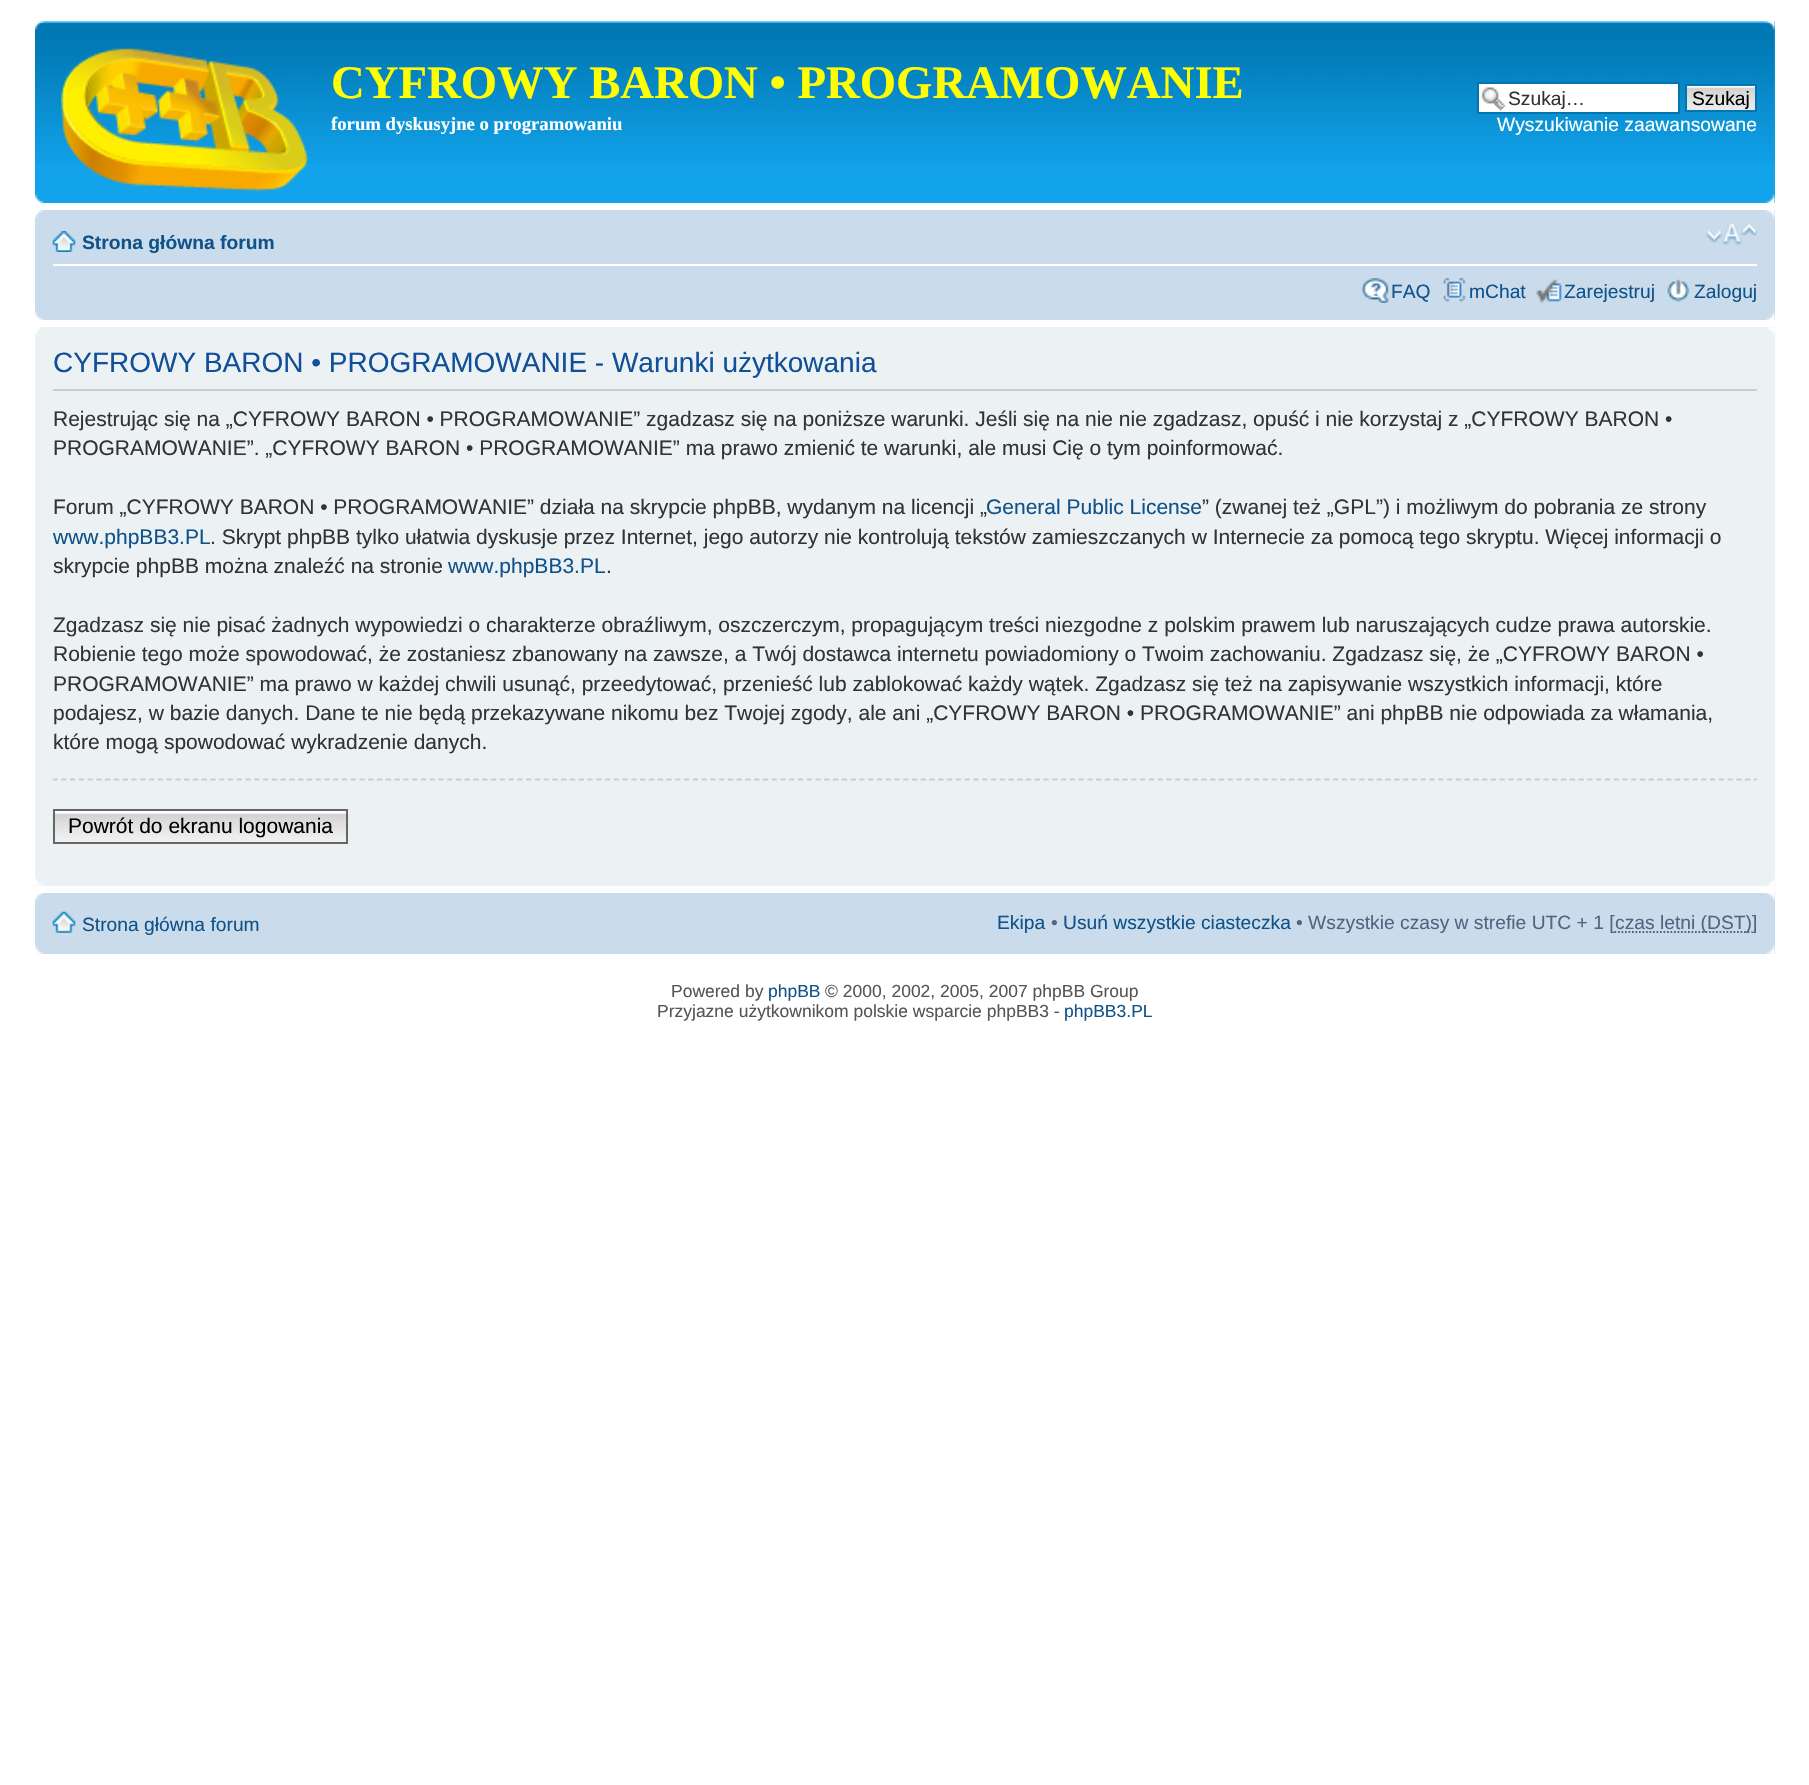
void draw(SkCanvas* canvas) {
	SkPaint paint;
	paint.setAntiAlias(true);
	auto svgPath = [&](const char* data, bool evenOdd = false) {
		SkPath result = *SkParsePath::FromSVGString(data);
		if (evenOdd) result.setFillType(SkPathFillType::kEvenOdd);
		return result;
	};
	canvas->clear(0xffffffff);
	paint.setColor(0xff12a3eb);
	canvas->drawRect(SkRect::MakeXYWH(35, 21, 1740, 182), paint);
	canvas->drawImageRect(SkImages::DeferredFromEncodedData(SkData::MakeFromFileName("img1.png")), SkRect::MakeXYWH(35, 21, 1740, 143), SkSamplingOptions());
	canvas->drawImageRect(SkImages::DeferredFromEncodedData(SkData::MakeFromFileName("img2.png")), SkRect::MakeXYWH(35, 21, 10, 9), SkSamplingOptions());
	canvas->drawImageRect(SkImages::DeferredFromEncodedData(SkData::MakeFromFileName("img3.png")), SkRect::MakeXYWH(1765, 21, 10, 9), SkSamplingOptions());
	canvas->drawImageRect(SkImages::DeferredFromEncodedData(SkData::MakeFromFileName("img4.png")), SkRect::MakeXYWH(61, 48, 247, 143), SkSamplingOptions());
	SkFont f1(fontMgr->matchFamilyStyle("Liberation Serif", SkFontStyle::Bold()), 46.7);
	f1.setSubpixel(true);
	paint.setColor(0xffffff00);
	canvas->drawString("CYFROWY BARON • PROGRAMOWANIE", 331, 98, f1, paint);
	SkFont f2(fontMgr->matchFamilyStyle("Liberation Serif", SkFontStyle::Bold()), 18.7);
	f2.setSubpixel(true);
	paint.setColor(0xffffffff);
	canvas->drawString("forum dyskusyjne o programowaniu", 331, 130, f2, paint);
	canvas->drawRect(SkRect::MakeXYWH(1479, 84, 199, 28), paint);
	canvas->drawImageRect(SkImages::DeferredFromEncodedData(SkData::MakeFromFileName("img5.png")), SkRect::MakeXYWH(1481, 87, 25, 24), SkSamplingOptions());
	paint.setStroke(true);
	paint.setStrokeWidth(2);
	paint.setColor(0xff0075b0);
	canvas->drawRect(SkRect::MakeXYWH(1478, 83, 201, 30), paint);
	SkFont f3(fontMgr->matchFamilyStyle("Liberation Sans", SkFontStyle::Normal()), 19.25);
	f3.setSubpixel(true);
	paint.setStroke(false);
	paint.setColor(0xff333333);
	canvas->drawString("Szukaj…", 1508, 105, f3, paint);
	canvas->drawImageRect(SkImages::DeferredFromEncodedData(SkData::MakeFromFileName("img6.png")), SkRect::MakeXYWH(1687, 86, 68, 24), SkSamplingOptions());
	paint.setStroke(true);
	paint.setColor(0xff0075b0);
	canvas->drawRect(SkRect::MakeXYWH(1686, 85, 70, 26), paint);
	paint.setStroke(false);
	paint.setColor(0xff000000);
	canvas->drawString("Szukaj", 1692, 105, f3, paint);
	paint.setColor(0xffffffff);
	canvas->drawString("Wyszukiwanie zaawansowane", 1497, 131, f3, paint);
	canvas->drawImageRect(SkImages::DeferredFromEncodedData(SkData::MakeFromFileName("img7.png")), SkRect::MakeXYWH(35, 194, 10, 9), SkSamplingOptions());
	canvas->drawImageRect(SkImages::DeferredFromEncodedData(SkData::MakeFromFileName("img8.png")), SkRect::MakeXYWH(1765, 194, 10, 9), SkSamplingOptions());
	paint.setColor(0xffcadceb);
	canvas->drawRect(SkRect::MakeXYWH(35, 210, 1740, 110), paint);
	canvas->drawImageRect(SkImages::DeferredFromEncodedData(SkData::MakeFromFileName("img9.png")), SkRect::MakeXYWH(35, 210, 9, 9), SkSamplingOptions());
	canvas->drawImageRect(SkImages::DeferredFromEncodedData(SkData::MakeFromFileName("img10.png")), SkRect::MakeXYWH(1765, 210, 10, 9), SkSamplingOptions());
	paint.setColor(0xffffffff);
	canvas->drawRect(SkRect::MakeXYWH(53, 264, 1704, 2), paint);
	canvas->drawImageRect(SkImages::DeferredFromEncodedData(SkData::MakeFromFileName("img11.png")), SkRect::MakeXYWH(52, 231, 24, 21), SkSamplingOptions());
	SkFont f4(fontMgr->matchFamilyStyle("Liberation Sans", SkFontStyle::Bold()), 19.25);
	f4.setSubpixel(true);
	paint.setColor(0xff105289);
	canvas->drawString("Strona główna forum", 82, 249, f4, paint);
	canvas->drawImageRect(SkImages::DeferredFromEncodedData(SkData::MakeFromFileName("img12.png")), SkRect::MakeXYWH(1706, 223, 51, 23), SkSamplingOptions());
	canvas->drawImageRect(SkImages::DeferredFromEncodedData(SkData::MakeFromFileName("img13.png")), SkRect::MakeXYWH(1361, 278, 29, 25), SkSamplingOptions());
	canvas->drawString("FAQ", 1391, 298, f3, paint);
	canvas->drawImageRect(SkImages::DeferredFromEncodedData(SkData::MakeFromFileName("img14.png")), SkRect::MakeXYWH(1443, 278, 23, 24), SkSamplingOptions());
	canvas->drawString("mChat", 1469, 298, f3, paint);
	canvas->drawImageRect(SkImages::DeferredFromEncodedData(SkData::MakeFromFileName("img15.png")), SkRect::MakeXYWH(1536, 279, 26, 24), SkSamplingOptions());
	canvas->drawString("Zarejestruj", 1564, 298, f3, paint);
	canvas->drawImageRect(SkImages::DeferredFromEncodedData(SkData::MakeFromFileName("img16.png")), SkRect::MakeXYWH(1667, 279, 23, 23), SkSamplingOptions());
	canvas->drawString("Zaloguj", 1694, 298, f3, paint);
	canvas->drawImageRect(SkImages::DeferredFromEncodedData(SkData::MakeFromFileName("img17.png")), SkRect::MakeXYWH(35, 311, 9, 9), SkSamplingOptions());
	canvas->drawImageRect(SkImages::DeferredFromEncodedData(SkData::MakeFromFileName("img18.png")), SkRect::MakeXYWH(1766, 311, 9, 9), SkSamplingOptions());
	paint.setColor(0xffecf1f3);
	canvas->drawRect(SkRect::MakeXYWH(35, 327, 1740, 559), paint);
	canvas->drawImageRect(SkImages::DeferredFromEncodedData(SkData::MakeFromFileName("img19.png")), SkRect::MakeXYWH(35, 327, 8, 9), SkSamplingOptions());
	canvas->drawImageRect(SkImages::DeferredFromEncodedData(SkData::MakeFromFileName("img20.png")), SkRect::MakeXYWH(1767, 327, 8, 8), SkSamplingOptions());
	paint.setColor(0xffcccccc);
	canvas->drawRect(SkRect::MakeXYWH(53, 389, 1704, 2), paint);
	SkFont f5(fontMgr->matchFamilyStyle("Liberation Sans", SkFontStyle::Normal()), 28);
	f5.setSubpixel(true);
	paint.setColor(0xff115098);
	canvas->drawString("CYFROWY BARON • PROGRAMOWANIE - Warunki użytkowania", 53, 372, f5, paint);
	SkFont f6(fontMgr->matchFamilyStyle("Liberation Sans", SkFontStyle::Normal()), 21);
	f6.setSubpixel(true);
	paint.setColor(0xff333333);
	canvas->drawString("Rejestrując się na „CYFROWY BARON • PROGRAMOWANIE” zgadzasz się na poniższe warunki. Jeśli się na nie nie zgadzasz, opuść i nie korzystaj z „CYFROWY BARON •", 53, 426, f6, paint);
	canvas->drawString("PROGRAMOWANIE”. „CYFROWY BARON • PROGRAMOWANIE” ma prawo zmienić te warunki, ale musi Cię o tym poinformować.", 53, 455, f6, paint);
	canvas->drawString("Forum „CYFROWY BARON • PROGRAMOWANIE” działa na skrypcie phpBB, wydanym na licencji „", 53, 514, f6, paint);
	paint.setColor(0xff105289);
	canvas->drawString("General Public License", 986, 514, f6, paint);
	paint.setColor(0xff333333);
	canvas->drawString("” (zwanej też „GPL”) i możliwym do pobrania ze strony", 1202, 514, f6, paint);
	paint.setColor(0xff105289);
	canvas->drawString("www.phpBB3.PL", 53, 544, f6, paint);
	paint.setColor(0xff333333);
	canvas->drawString(". Skrypt phpBB tylko ułatwia dyskusje przez Internet, jego autorzy nie kontrolują tekstów zamieszczanych w Internecie za pomocą tego skryptu. Więcej informacji o", 210, 544, f6, paint);
	canvas->drawString("skrypcie phpBB można znaleźć na stronie", 53, 573, f6, paint);
	paint.setColor(0xff105289);
	canvas->drawString("www.phpBB3.PL", 448, 573, f6, paint);
	paint.setColor(0xff333333);
	canvas->drawString(".", 606, 573, f6, paint);
	canvas->drawString("Zgadzasz się nie pisać żadnych wypowiedzi o charakterze obraźliwym, oszczerczym, propagującym treści niezgodne z polskim prawem lub naruszających cudze prawa autorskie.", 53, 632, f6, paint);
	canvas->drawString("Robienie tego może spowodować, że zostaniesz zbanowany na zawsze, a Twój dostawca internetu powiadomiony o Twoim zachowaniu. Zgadzasz się, że „CYFROWY BARON •", 53, 661, f6, paint);
	canvas->drawString("PROGRAMOWANIE” ma prawo w każdej chwili usunąć, przeedytować, przenieść lub zablokować każdy wątek. Zgadzasz się też na zapisywanie wszystkich informacji, które", 53, 691, f6, paint);
	canvas->drawString("podajesz, w bazie danych. Dane te nie będą przekazywane nikomu bez Twojej zgody, ale ani „CYFROWY BARON • PROGRAMOWANIE” ani phpBB nie odpowiada za włamania,", 53, 720, f6, paint);
	canvas->drawString("które mogą spowodować wykradzenie danych.", 53, 749, f6, paint);
	canvas->save();
	canvas->clipRect(SkRect::MakeXYWH(53, 336, 1704, 541));
	paint.setStroke(true);
	paint.setStrokeWidth(1.8);
	paint.setColor(0xffcccccc);
	paint.setPathEffect(SkDashPathEffect::Make({{5.25f, 3.52f}}, 0));
	canvas->drawPath(svgPath("M52.5 779.5H1757"), paint);
	paint.setPathEffect(nullptr);
	canvas->restore();
	canvas->drawImageRect(SkImages::DeferredFromEncodedData(SkData::MakeFromFileName("img21.png")), SkRect::MakeXYWH(52, 812, 297, 32), SkSamplingOptions());
	paint.setStroke(false);
	paint.setColor(0xfffafafa);
	canvas->drawRect(SkRect::MakeXYWH(55, 811, 291, 1), paint);
	paint.setStroke(true);
	paint.setStrokeWidth(2);
	paint.setColor(0xff666666);
	canvas->drawRect(SkRect::MakeXYWH(54, 810, 293, 33), paint);
	paint.setStroke(false);
	paint.setColor(0xff000000);
	canvas->drawString("Powrót do ekranu logowania", 68, 833, f6, paint);
	canvas->drawImageRect(SkImages::DeferredFromEncodedData(SkData::MakeFromFileName("img22.png")), SkRect::MakeXYWH(35, 877, 8, 9), SkSamplingOptions());
	canvas->drawImageRect(SkImages::DeferredFromEncodedData(SkData::MakeFromFileName("img23.png")), SkRect::MakeXYWH(1767, 878, 8, 8), SkSamplingOptions());
	paint.setColor(0xffcadceb);
	canvas->drawRect(SkRect::MakeXYWH(35, 893, 1740, 61), paint);
	canvas->drawImageRect(SkImages::DeferredFromEncodedData(SkData::MakeFromFileName("img24.png")), SkRect::MakeXYWH(35, 893, 9, 8), SkSamplingOptions());
	canvas->drawImageRect(SkImages::DeferredFromEncodedData(SkData::MakeFromFileName("img25.png")), SkRect::MakeXYWH(1765, 893, 10, 8), SkSamplingOptions());
	canvas->drawImageRect(SkImages::DeferredFromEncodedData(SkData::MakeFromFileName("img26.png")), SkRect::MakeXYWH(52, 911, 24, 22), SkSamplingOptions());
	paint.setColor(0xff105289);
	canvas->drawString("Strona główna forum", 82, 931, f3, paint);
	canvas->drawString("Ekipa", 997, 929, f3, paint);
	paint.setColor(0xff536482);
	canvas->drawString("•", 1051, 929, f3, paint);
	paint.setColor(0xff105289);
	canvas->drawString("Usuń wszystkie ciasteczka", 1063, 929, f3, paint);
	paint.setColor(0xff536482);
	canvas->drawString("• Wszystkie czasy w strefie UTC + 1 [", 1296, 929, f3, paint);
	paint.setStroke(true);
	paint.setStrokeWidth(1.8);
	paint.setPathEffect(SkDashPathEffect::Make({{1.75f, 1.75f}}, 0));
	canvas->drawPath(svgPath("M1614.5 932H1751.5"), paint);
	paint.setPathEffect(nullptr);
	paint.setStroke(false);
	canvas->drawString("czas letni (DST)]", 1615, 929, f3, paint);
	canvas->drawImageRect(SkImages::DeferredFromEncodedData(SkData::MakeFromFileName("img27.png")), SkRect::MakeXYWH(35, 945, 9, 9), SkSamplingOptions());
	canvas->drawImageRect(SkImages::DeferredFromEncodedData(SkData::MakeFromFileName("img28.png")), SkRect::MakeXYWH(1766, 945, 9, 9), SkSamplingOptions());
	SkFont f7(fontMgr->matchFamilyStyle("Liberation Sans", SkFontStyle::Normal()), 17.5);
	f7.setSubpixel(true);
	paint.setColor(0xff555555);
	canvas->drawString("Powered by", 671, 997, f7, paint);
	paint.setColor(0xff105289);
	canvas->drawString("phpBB", 768, 997, f7, paint);
	paint.setColor(0xff555555);
	canvas->drawString("© 2000, 2002, 2005, 2007 phpBB Group", 825, 997, f7, paint);
	canvas->drawString("Przyjazne użytkownikom polskie wsparcie phpBB3 -", 657, 1017, f7, paint);
	paint.setColor(0xff105289);
	canvas->drawString("phpBB3.PL", 1064, 1017, f7, paint);
}
